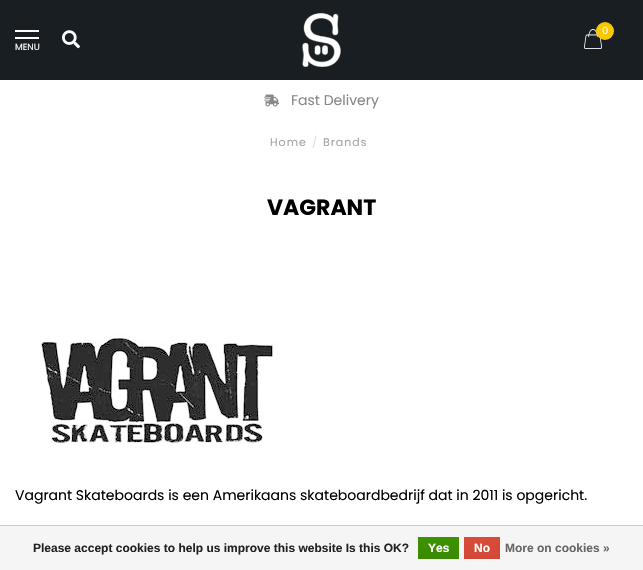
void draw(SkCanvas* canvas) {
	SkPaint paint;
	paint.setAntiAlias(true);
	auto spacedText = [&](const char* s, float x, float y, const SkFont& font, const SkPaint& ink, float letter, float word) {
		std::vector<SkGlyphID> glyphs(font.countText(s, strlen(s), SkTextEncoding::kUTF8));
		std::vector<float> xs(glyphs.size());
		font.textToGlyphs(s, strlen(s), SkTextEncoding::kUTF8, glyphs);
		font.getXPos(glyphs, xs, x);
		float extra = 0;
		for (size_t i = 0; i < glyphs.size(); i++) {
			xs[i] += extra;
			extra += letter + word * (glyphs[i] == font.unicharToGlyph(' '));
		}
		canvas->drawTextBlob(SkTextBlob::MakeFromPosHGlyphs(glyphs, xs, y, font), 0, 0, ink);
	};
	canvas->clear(0xffffffff);
	paint.setColor(0xff181e21);
	canvas->drawRect(SkRect::MakeXYWH(0, 0, 643, 80), paint);
	canvas->drawImageRect(SkImages::DeferredFromEncodedData(SkData::MakeFromFileName("img1.png")), SkRect::MakeXYWH(302, 13, 39, 54), SkSamplingOptions());
	canvas->drawImageRect(SkImages::DeferredFromEncodedData(SkData::MakeFromFileName("img2.png")), SkRect::MakeXYWH(584, 29, 18, 20), SkSamplingOptions());
	paint.setColor(0xfffac800);
	canvas->drawCircle(605, 31, 9, paint);
	SkFont f1(fontMgr->matchFamilyStyle("Poppins", SkFontStyle::Normal()), 10);
	f1.setSubpixel(true);
	paint.setColor(0xffffffff);
	canvas->drawString("0", 602, 34, f1, paint);
	canvas->drawRect(SkRect::MakeXYWH(15, 30, 24, 2), paint);
	canvas->drawRect(SkRect::MakeXYWH(15, 37, 24, 2), paint);
	SkFont f2(fontMgr->matchFamilyStyle("Poppins", SkFontStyle::Normal()), 9);
	f2.setSubpixel(true);
	canvas->drawString("MENU", 15, 50, f2, paint);
	canvas->drawImageRect(SkImages::DeferredFromEncodedData(SkData::MakeFromFileName("img3.png")), SkRect::MakeXYWH(62, 30, 18, 19), SkSamplingOptions());
	canvas->drawImageRect(SkImages::DeferredFromEncodedData(SkData::MakeFromFileName("img4.png")), SkRect::MakeXYWH(264, 94, 15, 13), SkSamplingOptions());
	SkFont f3(fontMgr->matchFamilyStyle("Poppins", SkFontStyle::Normal()), 14);
	f3.setSubpixel(true);
	paint.setColor(0xff888888);
	canvas->drawString("Fast Delivery", 291, 105, f3, paint);
	SkFont f4(fontMgr->matchFamilyStyle("Poppins", SkFontStyle::Normal()), 11);
	f4.setSubpixel(true);
	paint.setColor(0xffa5a5a5);
	spacedText("Home", 270, 146, f4, paint, 1, 0);
	paint.setColor(0xffdddddd);
	spacedText("/", 312, 146, f4, paint, 1, 0);
	paint.setColor(0xffa5a5a5);
	spacedText("Brands", 323, 146, f4, paint, 1, 0);
	SkFont f5(fontMgr->matchFamilyStyle("Poppins", SkFontStyle::Bold()), 22);
	f5.setSubpixel(true);
	paint.setColor(0xff000000);
	canvas->drawString("VAGRANT", 267, 215, f5, paint);
	paint.setColor(0xfff6f6f6);
	canvas->drawRoundRect(SkRect::MakeXYWH(15, 300, 280, 180), 10, 10, paint);
	canvas->drawImageRect(SkImages::DeferredFromEncodedData(SkData::MakeFromFileName("img5.png")), SkRect::MakeXYWH(15, 300, 280, 180), SkSamplingOptions());
	paint.setColor(0xff000000);
	canvas->drawString("Vagrant Skateboards is een Amerikaans skateboardbedrijf dat in 2011 is opgericht.", 15, 500, f3, paint);
	paint.setColor(0xfff5f5f5);
	canvas->drawRect(SkRect::MakeXYWH(0, 526, 643, 44), paint);
	paint.setColor(0xffcccccc);
	canvas->drawRect(SkRect::MakeXYWH(0, 525, 643, 1), paint);
	SkFont f6(fontMgr->matchFamilyStyle("Liberation Sans", SkFontStyle::Bold()), 12);
	f6.setSubpixel(true);
	paint.setColor(0xff222222);
	canvas->drawString("Please accept cookies to help us improve this website Is this OK?", 33, 552, f6, paint);
	{
		const SkColor colors[] = {0xff3c9300, 0xff398a00};
		const float stops[] = {0, 1};
		const SkPoint ends[] = {{439, 537}, {439, 559}};
		paint.setShader(SkGradientShader::MakeLinear(ends, colors, stops, 2, SkTileMode::kClamp));
		paint.setAlpha(255);
	}
	canvas->drawRect(SkRect::MakeXYWH(418, 537, 41, 22), paint);
	paint.setShader(nullptr);
	paint.setColor(0xffffffff);
	canvas->drawString("Yes", 428, 552, f6, paint);
	{
		const SkColor colors[] = {0xffdc4a38, 0xffd14836};
		const float stops[] = {0, 1};
		const SkPoint ends[] = {{482, 537}, {482, 559}};
		paint.setShader(SkGradientShader::MakeLinear(ends, colors, stops, 2, SkTileMode::kClamp));
		paint.setAlpha(255);
	}
	canvas->drawRect(SkRect::MakeXYWH(464, 537, 36, 22), paint);
	paint.setShader(nullptr);
	paint.setColor(0xffffffff);
	canvas->drawString("No", 474, 552, f6, paint);
	paint.setColor(0xff666666);
	canvas->drawString("More on cookies »", 505, 552, f6, paint);
}
